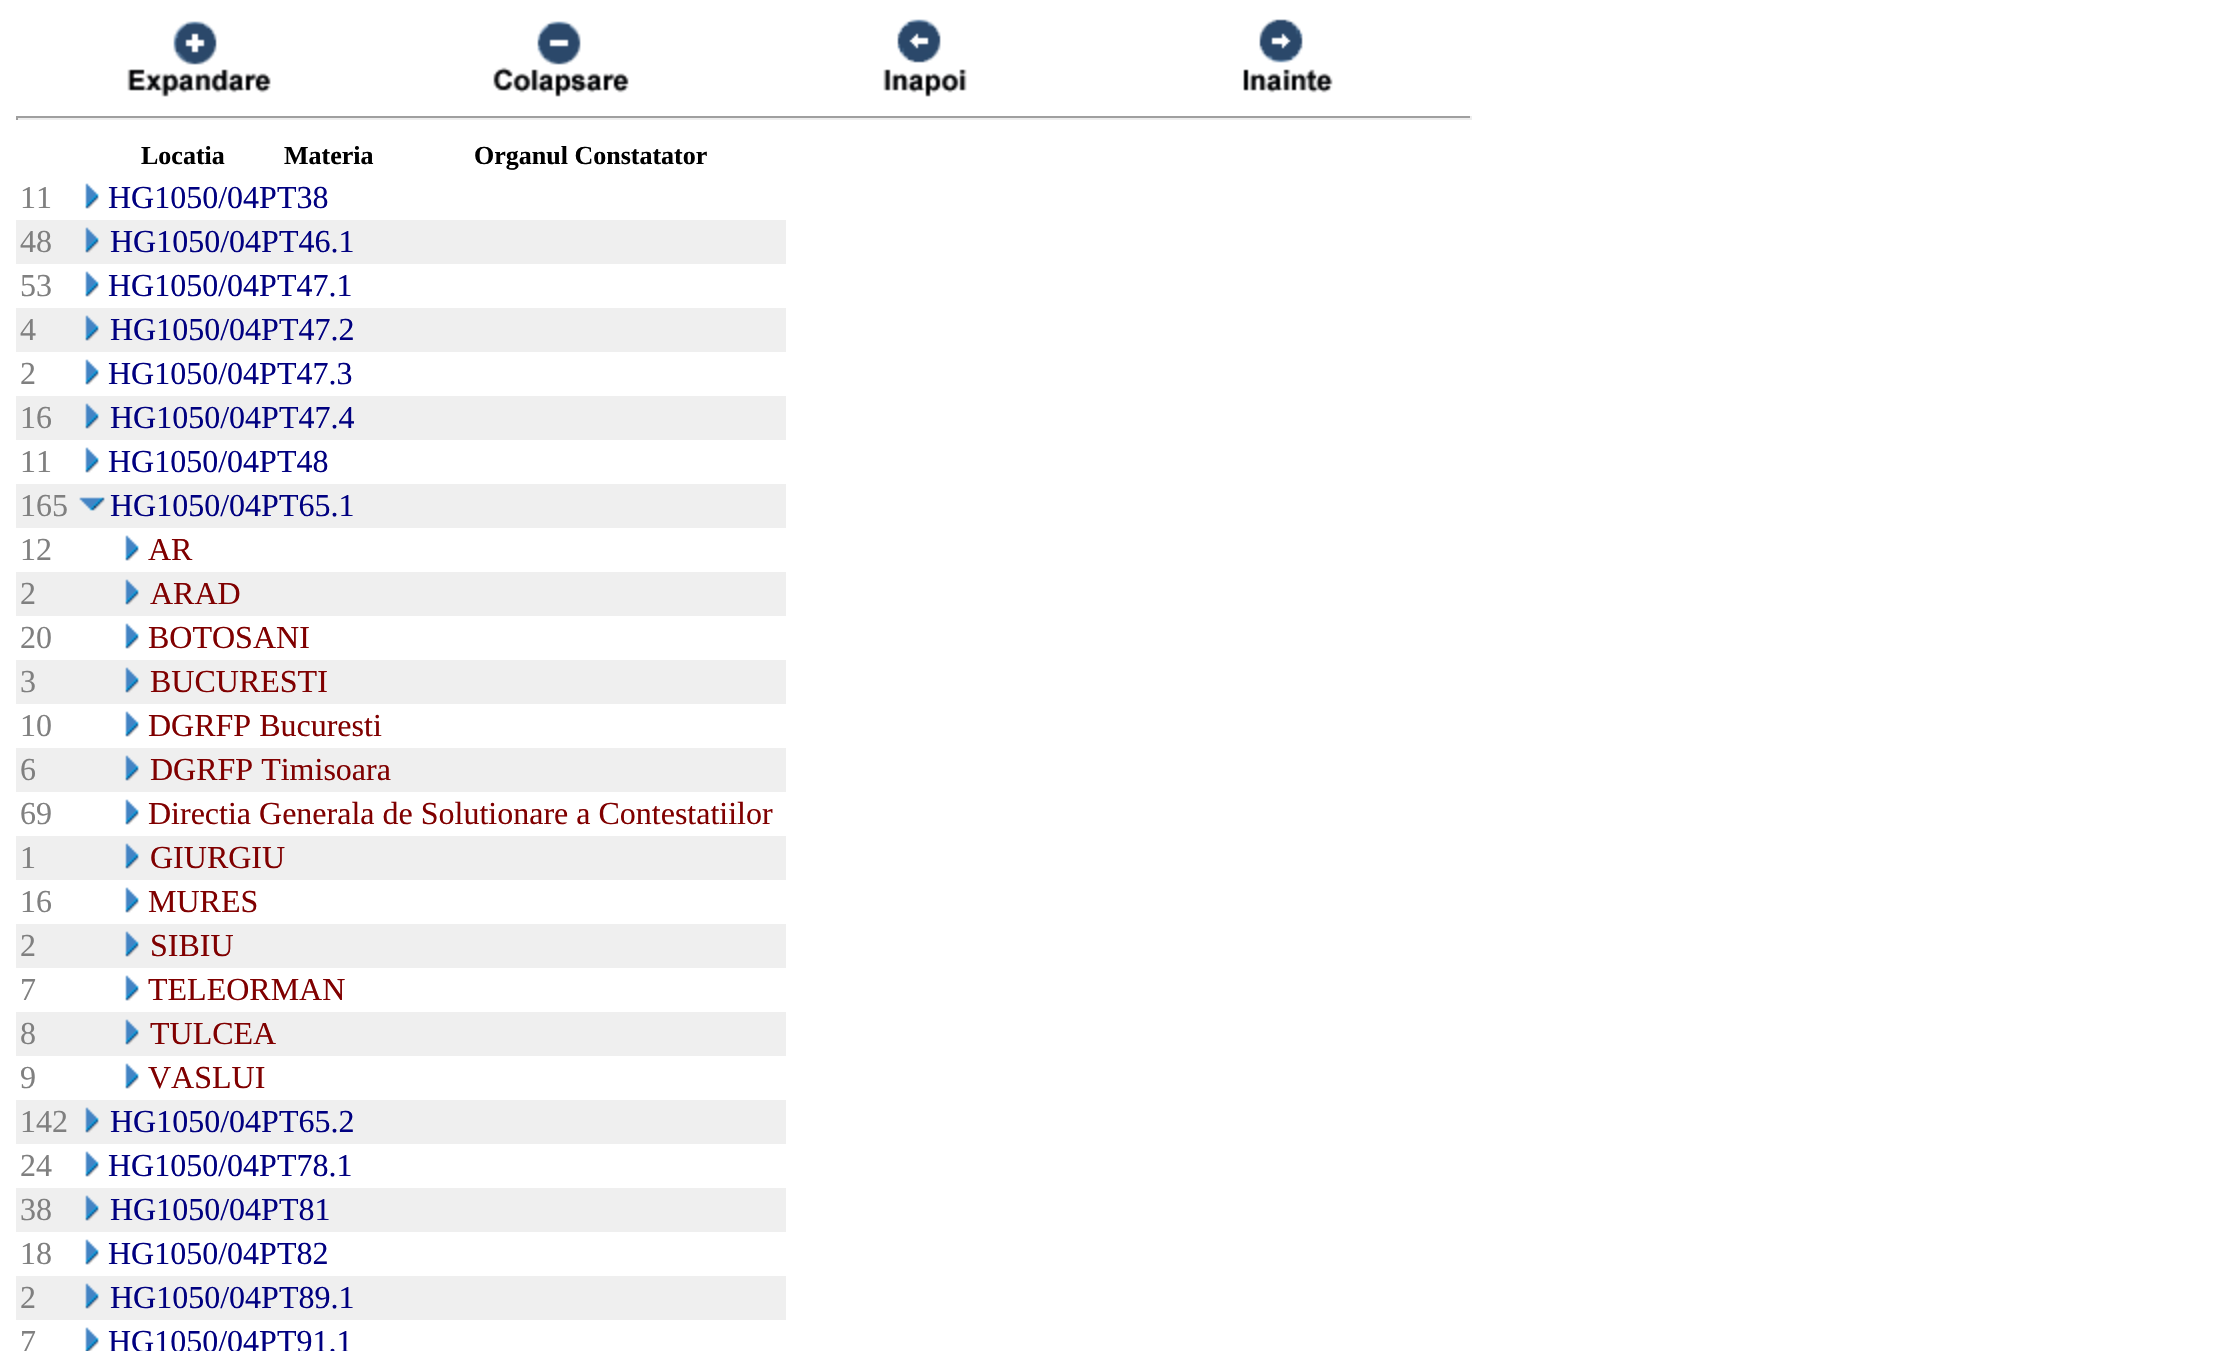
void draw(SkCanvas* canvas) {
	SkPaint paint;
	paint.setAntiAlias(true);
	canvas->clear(0xffffffff);
	canvas->drawImageRect(SkImages::DeferredFromEncodedData(SkData::MakeFromFileName("img1.png")), SkRect::MakeXYWH(127, 21, 144, 76), SkSamplingOptions());
	canvas->drawImageRect(SkImages::DeferredFromEncodedData(SkData::MakeFromFileName("img2.png")), SkRect::MakeXYWH(493, 21, 136, 76), SkSamplingOptions());
	canvas->drawImageRect(SkImages::DeferredFromEncodedData(SkData::MakeFromFileName("img3.png")), SkRect::MakeXYWH(883, 19, 84, 78), SkSamplingOptions());
	canvas->drawImageRect(SkImages::DeferredFromEncodedData(SkData::MakeFromFileName("img4.png")), SkRect::MakeXYWH(1243, 19, 90, 74), SkSamplingOptions());
	paint.setColor(0xff9f9f9f);
	canvas->drawRect(SkRect::MakeXYWH(16, 116, 1456, 2), paint);
	paint.setColor(0xffeeeeee);
	canvas->drawRect(SkRect::MakeXYWH(1470, 116, 2, 4), paint);
	canvas->drawRect(SkRect::MakeXYWH(16, 118, 1456, 2), paint);
	paint.setColor(0xff9f9f9f);
	canvas->drawRect(SkRect::MakeXYWH(16, 116, 2, 4), paint);
	SkFont f1(fontMgr->matchFamilyStyle("Liberation Serif", SkFontStyle::Bold()), 26);
	f1.setSubpixel(true);
	paint.setColor(0xff000000);
	canvas->drawString("Locatia", 141, 164, f1, paint);
	canvas->drawString("Materia", 284, 164, f1, paint);
	canvas->drawString("Organul Constatator", 474, 164, f1, paint);
	SkFont f2(fontMgr->matchFamilyStyle("Liberation Serif", SkFontStyle::Normal()), 32);
	f2.setSubpixel(true);
	paint.setColor(0xff808080);
	canvas->drawString("11", 20, 208, f2, paint);
	canvas->drawImageRect(SkImages::DeferredFromEncodedData(SkData::MakeFromFileName("img5.png")), SkRect::MakeXYWH(85, 183, 14, 26), SkSamplingOptions());
	paint.setColor(0xff000080);
	canvas->drawString("HG1050/04PT38", 108, 208, f2, paint);
	paint.setColor(0xffefefef);
	canvas->drawRect(SkRect::MakeXYWH(16, 220, 770, 44), paint);
	paint.setColor(0xff808080);
	canvas->drawString("48", 20, 252, f2, paint);
	canvas->drawImageRect(SkImages::DeferredFromEncodedData(SkData::MakeFromFileName("img6.png")), SkRect::MakeXYWH(85, 227, 14, 26), SkSamplingOptions());
	paint.setColor(0xff000080);
	canvas->drawString("HG1050/04PT46.1", 110, 252, f2, paint);
	paint.setColor(0xff808080);
	canvas->drawString("53", 20, 296, f2, paint);
	canvas->drawImageRect(SkImages::DeferredFromEncodedData(SkData::MakeFromFileName("img5.png")), SkRect::MakeXYWH(85, 271, 14, 26), SkSamplingOptions());
	paint.setColor(0xff000080);
	canvas->drawString("HG1050/04PT47.1", 108, 296, f2, paint);
	paint.setColor(0xffefefef);
	canvas->drawRect(SkRect::MakeXYWH(16, 308, 770, 44), paint);
	paint.setColor(0xff808080);
	canvas->drawString("4", 20, 340, f2, paint);
	canvas->drawImageRect(SkImages::DeferredFromEncodedData(SkData::MakeFromFileName("img6.png")), SkRect::MakeXYWH(85, 315, 14, 26), SkSamplingOptions());
	paint.setColor(0xff000080);
	canvas->drawString("HG1050/04PT47.2", 110, 340, f2, paint);
	paint.setColor(0xff808080);
	canvas->drawString("2", 20, 384, f2, paint);
	canvas->drawImageRect(SkImages::DeferredFromEncodedData(SkData::MakeFromFileName("img5.png")), SkRect::MakeXYWH(85, 359, 14, 26), SkSamplingOptions());
	paint.setColor(0xff000080);
	canvas->drawString("HG1050/04PT47.3", 108, 384, f2, paint);
	paint.setColor(0xffefefef);
	canvas->drawRect(SkRect::MakeXYWH(16, 396, 770, 44), paint);
	paint.setColor(0xff808080);
	canvas->drawString("16", 20, 428, f2, paint);
	canvas->drawImageRect(SkImages::DeferredFromEncodedData(SkData::MakeFromFileName("img6.png")), SkRect::MakeXYWH(85, 403, 14, 26), SkSamplingOptions());
	paint.setColor(0xff000080);
	canvas->drawString("HG1050/04PT47.4", 110, 428, f2, paint);
	paint.setColor(0xff808080);
	canvas->drawString("11", 20, 472, f2, paint);
	canvas->drawImageRect(SkImages::DeferredFromEncodedData(SkData::MakeFromFileName("img5.png")), SkRect::MakeXYWH(85, 447, 14, 26), SkSamplingOptions());
	paint.setColor(0xff000080);
	canvas->drawString("HG1050/04PT48", 108, 472, f2, paint);
	paint.setColor(0xffefefef);
	canvas->drawRect(SkRect::MakeXYWH(16, 484, 770, 44), paint);
	paint.setColor(0xff808080);
	canvas->drawString("165", 20, 516, f2, paint);
	canvas->drawImageRect(SkImages::DeferredFromEncodedData(SkData::MakeFromFileName("img7.png")), SkRect::MakeXYWH(79, 497, 26, 14), SkSamplingOptions());
	paint.setColor(0xff000080);
	canvas->drawString("HG1050/04PT65.1", 110, 516, f2, paint);
	paint.setColor(0xff808080);
	canvas->drawString("12", 20, 560, f2, paint);
	canvas->drawImageRect(SkImages::DeferredFromEncodedData(SkData::MakeFromFileName("img5.png")), SkRect::MakeXYWH(125, 535, 14, 26), SkSamplingOptions());
	paint.setColor(0xff800000);
	canvas->drawString("AR", 148, 560, f2, paint);
	paint.setColor(0xffefefef);
	canvas->drawRect(SkRect::MakeXYWH(16, 572, 770, 44), paint);
	paint.setColor(0xff808080);
	canvas->drawString("2", 20, 604, f2, paint);
	canvas->drawImageRect(SkImages::DeferredFromEncodedData(SkData::MakeFromFileName("img6.png")), SkRect::MakeXYWH(125, 579, 14, 26), SkSamplingOptions());
	paint.setColor(0xff800000);
	canvas->drawString("ARAD", 150, 604, f2, paint);
	paint.setColor(0xff808080);
	canvas->drawString("20", 20, 648, f2, paint);
	canvas->drawImageRect(SkImages::DeferredFromEncodedData(SkData::MakeFromFileName("img5.png")), SkRect::MakeXYWH(125, 623, 14, 26), SkSamplingOptions());
	paint.setColor(0xff800000);
	canvas->drawString("BOTOSANI", 148, 648, f2, paint);
	paint.setColor(0xffefefef);
	canvas->drawRect(SkRect::MakeXYWH(16, 660, 770, 44), paint);
	paint.setColor(0xff808080);
	canvas->drawString("3", 20, 692, f2, paint);
	canvas->drawImageRect(SkImages::DeferredFromEncodedData(SkData::MakeFromFileName("img6.png")), SkRect::MakeXYWH(125, 667, 14, 26), SkSamplingOptions());
	paint.setColor(0xff800000);
	canvas->drawString("BUCURESTI", 150, 692, f2, paint);
	paint.setColor(0xff808080);
	canvas->drawString("10", 20, 736, f2, paint);
	canvas->drawImageRect(SkImages::DeferredFromEncodedData(SkData::MakeFromFileName("img5.png")), SkRect::MakeXYWH(125, 711, 14, 26), SkSamplingOptions());
	paint.setColor(0xff800000);
	canvas->drawString("DGRFP Bucuresti", 148, 736, f2, paint);
	paint.setColor(0xffefefef);
	canvas->drawRect(SkRect::MakeXYWH(16, 748, 770, 44), paint);
	paint.setColor(0xff808080);
	canvas->drawString("6", 20, 780, f2, paint);
	canvas->drawImageRect(SkImages::DeferredFromEncodedData(SkData::MakeFromFileName("img6.png")), SkRect::MakeXYWH(125, 755, 14, 26), SkSamplingOptions());
	paint.setColor(0xff800000);
	canvas->drawString("DGRFP Timisoara", 150, 780, f2, paint);
	paint.setColor(0xff808080);
	canvas->drawString("69", 20, 824, f2, paint);
	canvas->drawImageRect(SkImages::DeferredFromEncodedData(SkData::MakeFromFileName("img5.png")), SkRect::MakeXYWH(125, 799, 14, 26), SkSamplingOptions());
	paint.setColor(0xff800000);
	canvas->drawString("Directia Generala de Solutionare a Contestatiilor", 148, 824, f2, paint);
	paint.setColor(0xffefefef);
	canvas->drawRect(SkRect::MakeXYWH(16, 836, 770, 44), paint);
	paint.setColor(0xff808080);
	canvas->drawString("1", 20, 868, f2, paint);
	canvas->drawImageRect(SkImages::DeferredFromEncodedData(SkData::MakeFromFileName("img6.png")), SkRect::MakeXYWH(125, 843, 14, 26), SkSamplingOptions());
	paint.setColor(0xff800000);
	canvas->drawString("GIURGIU", 150, 868, f2, paint);
	paint.setColor(0xff808080);
	canvas->drawString("16", 20, 912, f2, paint);
	canvas->drawImageRect(SkImages::DeferredFromEncodedData(SkData::MakeFromFileName("img5.png")), SkRect::MakeXYWH(125, 887, 14, 26), SkSamplingOptions());
	paint.setColor(0xff800000);
	canvas->drawString("MURES", 148, 912, f2, paint);
	paint.setColor(0xffefefef);
	canvas->drawRect(SkRect::MakeXYWH(16, 924, 770, 44), paint);
	paint.setColor(0xff808080);
	canvas->drawString("2", 20, 956, f2, paint);
	canvas->drawImageRect(SkImages::DeferredFromEncodedData(SkData::MakeFromFileName("img6.png")), SkRect::MakeXYWH(125, 931, 14, 26), SkSamplingOptions());
	paint.setColor(0xff800000);
	canvas->drawString("SIBIU", 150, 956, f2, paint);
	paint.setColor(0xff808080);
	canvas->drawString("7", 20, 1000, f2, paint);
	canvas->drawImageRect(SkImages::DeferredFromEncodedData(SkData::MakeFromFileName("img5.png")), SkRect::MakeXYWH(125, 975, 14, 26), SkSamplingOptions());
	paint.setColor(0xff800000);
	canvas->drawString("TELEORMAN", 148, 1000, f2, paint);
	paint.setColor(0xffefefef);
	canvas->drawRect(SkRect::MakeXYWH(16, 1012, 770, 44), paint);
	paint.setColor(0xff808080);
	canvas->drawString("8", 20, 1044, f2, paint);
	canvas->drawImageRect(SkImages::DeferredFromEncodedData(SkData::MakeFromFileName("img6.png")), SkRect::MakeXYWH(125, 1019, 14, 26), SkSamplingOptions());
	paint.setColor(0xff800000);
	canvas->drawString("TULCEA", 150, 1044, f2, paint);
	paint.setColor(0xff808080);
	canvas->drawString("9", 20, 1088, f2, paint);
	canvas->drawImageRect(SkImages::DeferredFromEncodedData(SkData::MakeFromFileName("img5.png")), SkRect::MakeXYWH(125, 1063, 14, 26), SkSamplingOptions());
	paint.setColor(0xff800000);
	canvas->drawString("VASLUI", 148, 1088, f2, paint);
	paint.setColor(0xffefefef);
	canvas->drawRect(SkRect::MakeXYWH(16, 1100, 770, 44), paint);
	paint.setColor(0xff808080);
	canvas->drawString("142", 20, 1132, f2, paint);
	canvas->drawImageRect(SkImages::DeferredFromEncodedData(SkData::MakeFromFileName("img6.png")), SkRect::MakeXYWH(85, 1107, 14, 26), SkSamplingOptions());
	paint.setColor(0xff000080);
	canvas->drawString("HG1050/04PT65.2", 110, 1132, f2, paint);
	paint.setColor(0xff808080);
	canvas->drawString("24", 20, 1176, f2, paint);
	canvas->drawImageRect(SkImages::DeferredFromEncodedData(SkData::MakeFromFileName("img5.png")), SkRect::MakeXYWH(85, 1151, 14, 26), SkSamplingOptions());
	paint.setColor(0xff000080);
	canvas->drawString("HG1050/04PT78.1", 108, 1176, f2, paint);
	paint.setColor(0xffefefef);
	canvas->drawRect(SkRect::MakeXYWH(16, 1188, 770, 44), paint);
	paint.setColor(0xff808080);
	canvas->drawString("38", 20, 1220, f2, paint);
	canvas->drawImageRect(SkImages::DeferredFromEncodedData(SkData::MakeFromFileName("img6.png")), SkRect::MakeXYWH(85, 1195, 14, 26), SkSamplingOptions());
	paint.setColor(0xff000080);
	canvas->drawString("HG1050/04PT81", 110, 1220, f2, paint);
	paint.setColor(0xff808080);
	canvas->drawString("18", 20, 1264, f2, paint);
	canvas->drawImageRect(SkImages::DeferredFromEncodedData(SkData::MakeFromFileName("img5.png")), SkRect::MakeXYWH(85, 1239, 14, 26), SkSamplingOptions());
	paint.setColor(0xff000080);
	canvas->drawString("HG1050/04PT82", 108, 1264, f2, paint);
	paint.setColor(0xffefefef);
	canvas->drawRect(SkRect::MakeXYWH(16, 1276, 770, 44), paint);
	paint.setColor(0xff808080);
	canvas->drawString("2", 20, 1308, f2, paint);
	canvas->drawImageRect(SkImages::DeferredFromEncodedData(SkData::MakeFromFileName("img6.png")), SkRect::MakeXYWH(85, 1283, 14, 26), SkSamplingOptions());
	paint.setColor(0xff000080);
	canvas->drawString("HG1050/04PT89.1", 110, 1308, f2, paint);
	paint.setColor(0xff808080);
	canvas->drawString("7", 20, 1352, f2, paint);
	canvas->drawImageRect(SkImages::DeferredFromEncodedData(SkData::MakeFromFileName("img8.png")), SkRect::MakeXYWH(85, 1327, 14, 24), SkSamplingOptions());
	paint.setColor(0xff000080);
	canvas->drawString("HG1050/04PT91.1", 108, 1352, f2, paint);
}
